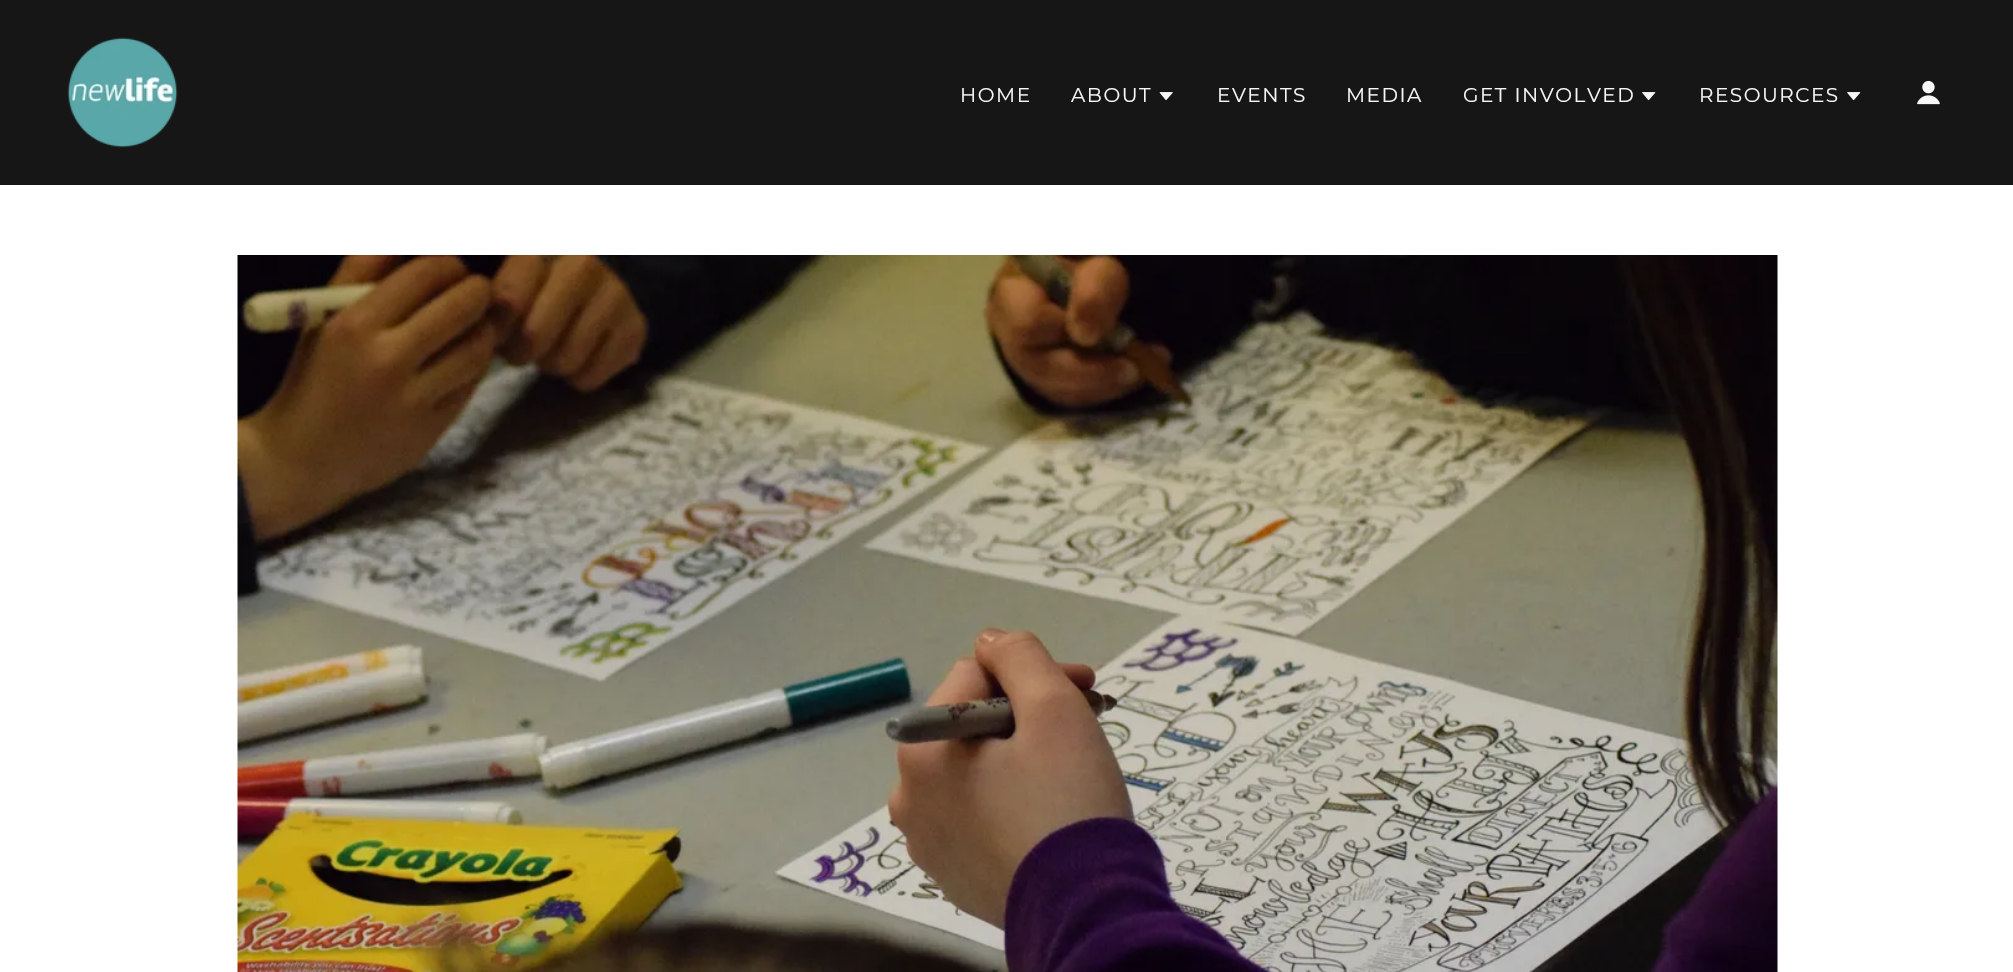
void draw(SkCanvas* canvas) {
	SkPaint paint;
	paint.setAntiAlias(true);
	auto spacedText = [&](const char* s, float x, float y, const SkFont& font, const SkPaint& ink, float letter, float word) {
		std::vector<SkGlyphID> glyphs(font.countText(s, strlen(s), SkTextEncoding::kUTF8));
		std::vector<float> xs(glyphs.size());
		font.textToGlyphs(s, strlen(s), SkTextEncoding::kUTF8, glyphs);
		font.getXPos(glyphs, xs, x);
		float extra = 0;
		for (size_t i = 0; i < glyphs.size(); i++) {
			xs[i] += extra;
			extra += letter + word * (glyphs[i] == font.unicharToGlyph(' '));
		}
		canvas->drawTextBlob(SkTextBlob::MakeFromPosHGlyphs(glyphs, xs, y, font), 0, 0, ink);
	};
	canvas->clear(0xffffffff);
	paint.setColor(0xff161616);
	canvas->drawRect(SkRect::MakeXYWH(0, 0, 2013, 185), paint);
	canvas->drawImageRect(SkImages::DeferredFromEncodedData(SkData::MakeFromFileName("img1.png")), SkRect::MakeXYWH(67, 37, 111, 111), SkSamplingOptions());
	SkFont f1(fontMgr->matchFamilyStyle("Montserrat", SkFontStyle::Normal()), 20);
	f1.setSubpixel(true);
	paint.setColor(0xfff7f7f7);
	spacedText("HOME", 960, 102, f1, paint, 1.5, 0);
	spacedText("ABOUT", 1071, 102, f1, paint, 1.5, 0);
	canvas->drawImageRect(SkImages::DeferredFromEncodedData(SkData::MakeFromFileName("img2.png")), SkRect::MakeXYWH(1159, 92, 14, 9), SkSamplingOptions());
	spacedText("EVENTS", 1217, 102, f1, paint, 1.5, 0);
	spacedText("MEDIA", 1346, 102, f1, paint, 1.5, 0);
	spacedText("GET INVOLVED", 1463, 102, f1, paint, 1.5, 0);
	canvas->drawImageRect(SkImages::DeferredFromEncodedData(SkData::MakeFromFileName("img3.png")), SkRect::MakeXYWH(1642, 92, 14, 9), SkSamplingOptions());
	spacedText("RESOURCES", 1699, 102, f1, paint, 1.5, 0);
	canvas->drawImageRect(SkImages::DeferredFromEncodedData(SkData::MakeFromFileName("img3.png")), SkRect::MakeXYWH(1847, 92, 14, 9), SkSamplingOptions());
	canvas->drawImageRect(SkImages::DeferredFromEncodedData(SkData::MakeFromFileName("img4.png")), SkRect::MakeXYWH(1917, 80, 23, 25), SkSamplingOptions());
	canvas->drawImageRect(SkImages::DeferredFromEncodedData(SkData::MakeFromFileName("img5.png")), SkRect::MakeXYWH(237, 255, 1541, 717), SkSamplingOptions());
}
